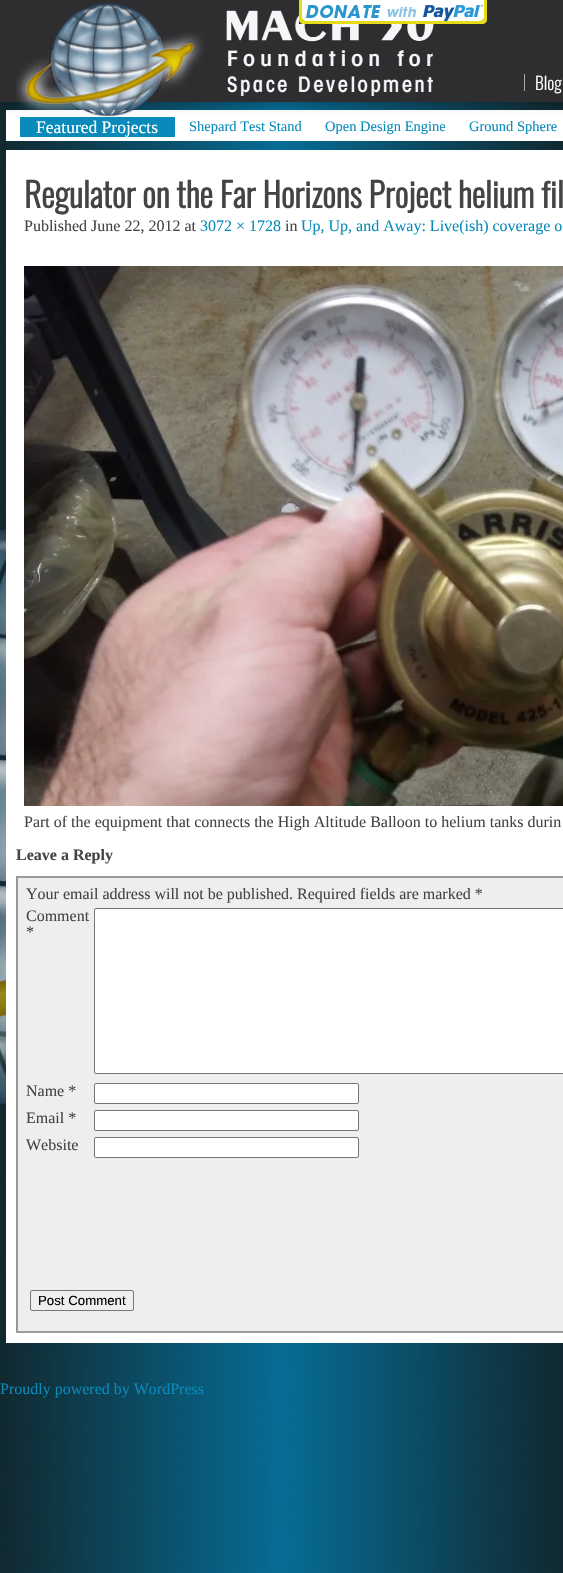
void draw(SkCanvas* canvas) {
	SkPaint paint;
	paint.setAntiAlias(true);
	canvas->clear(0xffffffff);
	canvas->drawImageRect(SkImages::DeferredFromEncodedData(SkData::MakeFromFileName("img3.png")), SkRect::MakeXYWH(0, 102, 563, 1471), SkSamplingOptions());
	paint.setColor(0xffffffff);
	canvas->drawRect(SkRect::MakeXYWH(6, 110, 557, 31), paint);
	paint.setColor(0xff098aba);
	canvas->drawRect(SkRect::MakeXYWH(20, 117, 155, 20), paint);
	paint.setColor(0x33000000);
	paint.setMaskFilter(SkMaskFilter::MakeBlur(kNormal_SkBlurStyle, 4));
	canvas->drawRect(SkRect::MakeXYWH(0, 4, 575, 102), paint);
	paint.setMaskFilter(nullptr);
	paint.setColor(0xff2e2e31);
	canvas->drawRect(SkRect::MakeXYWH(0, 0, 563, 102), paint);
	canvas->drawImageRect(SkImages::DeferredFromEncodedData(SkData::MakeFromFileName("img2.png")), SkRect::MakeXYWH(16, 3, 418, 114), SkSamplingOptions());
	canvas->drawImageRect(SkImages::DeferredFromEncodedData(SkData::MakeFromFileName("img1.png")), SkRect::MakeXYWH(299, 0, 188, 24), SkSamplingOptions());
	paint.setColor(0xffaaaaaa);
	canvas->drawRect(SkRect::MakeXYWH(524, 74, 1, 17), paint);
	SkFont f1(fontMgr->matchFamilyStyle("Oswald", SkFontStyle(300, SkFontStyle::kNormal_Width, SkFontStyle::kUpright_Slant)), 17.5);
	f1.setSubpixel(true);
	paint.setColor(0xffffffff);
	canvas->drawString("Blog", 535, 90, f1, paint);
	SkFont f2(fontMgr->matchFamilyStyle("Liberation Serif", SkFontStyle::Normal()), 17.5);
	f2.setSubpixel(true);
	canvas->drawString("Featured Projects", 36, 133, f2, paint);
	SkFont f3(fontMgr->matchFamilyStyle("Liberation Serif", SkFontStyle::Normal()), 14.5);
	f3.setSubpixel(true);
	paint.setColor(0xff098aba);
	canvas->drawString("Shepard Test Stand", 189, 131, f3, paint);
	canvas->drawString("Open Design Engine", 325, 131, f3, paint);
	canvas->drawString("Ground Sphere", 469, 131, f3, paint);
	paint.setColor(0xffffffff);
	canvas->drawRect(SkRect::MakeXYWH(6, 150, 557, 1193), paint);
	SkFont f4(fontMgr->matchFamilyStyle("Oswald", SkFontStyle::Bold()), 33.6);
	f4.setSubpixel(true);
	paint.setColor(0xff444444);
	canvas->drawString("Regulator on the Far Horizons Project helium fil", 24, 208, f4, paint);
	SkFont f5(fontMgr->matchFamilyStyle("Liberation Serif", SkFontStyle::Normal()), 16);
	f5.setSubpixel(true);
	canvas->drawString("Published June 22, 2012 at", 24, 231, f5, paint);
	paint.setColor(0xff098aba);
	canvas->drawString("3072 × 1728", 200, 231, f5, paint);
	paint.setColor(0xff444444);
	canvas->drawString("in", 285, 231, f5, paint);
	paint.setColor(0xff098aba);
	canvas->drawString("Up, Up, and Away: Live(ish) coverage o", 301, 231, f5, paint);
	canvas->drawImageRect(SkImages::DeferredFromEncodedData(SkData::MakeFromFileName("img4.png")), SkRect::MakeXYWH(24, 266, 539, 540), SkSamplingOptions());
	paint.setColor(0xff444444);
	canvas->drawString("Part of the equipment that connects the High Altitude Balloon to helium tanks durin", 24, 827, f5, paint);
	SkFont f6(fontMgr->matchFamilyStyle("Liberation Serif", SkFontStyle::Bold()), 16);
	f6.setSubpixel(true);
	canvas->drawString("Leave a Reply", 16, 860, f6, paint);
	paint.setColor(0xffeeeeee);
	canvas->drawRect(SkRect::MakeXYWH(17, 877, 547, 455), paint);
	paint.setStroke(true);
	paint.setStrokeWidth(2);
	paint.setColor(0xff999999);
	canvas->drawRect(SkRect::MakeXYWH(17, 877, 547, 455), paint);
	paint.setStroke(false);
	paint.setColor(0xff444444);
	canvas->drawString("Your email address will not be published. Required fields are marked *", 26, 899, f5, paint);
	canvas->drawString("Comment", 26, 921, f5, paint);
	canvas->drawString("*", 26, 937, f5, paint);
	paint.setColor(0xffffffff);
	canvas->drawRoundRect(SkRect::MakeXYWH(94.5, 908.5, 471, 165), 1.5, 1.5, paint);
	paint.setStroke(true);
	paint.setStrokeWidth(1);
	paint.setColor(0xff767676);
	canvas->drawRoundRect(SkRect::MakeXYWH(94.5, 908.5, 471, 165), 1.5, 1.5, paint);
	paint.setStroke(false);
	paint.setColor(0xff444444);
	canvas->drawString("Name *", 26, 1096, f5, paint);
	paint.setColor(0xffffffff);
	canvas->drawRoundRect(SkRect::MakeXYWH(94.5, 1083.5, 264, 20), 1.5, 1.5, paint);
	paint.setStroke(true);
	paint.setColor(0xff767676);
	canvas->drawRoundRect(SkRect::MakeXYWH(94.5, 1083.5, 264, 20), 1.5, 1.5, paint);
	paint.setStroke(false);
	paint.setColor(0xff444444);
	canvas->drawString("Email *", 26, 1123, f5, paint);
	paint.setColor(0xffffffff);
	canvas->drawRoundRect(SkRect::MakeXYWH(94.5, 1110.5, 264, 20), 1.5, 1.5, paint);
	paint.setStroke(true);
	paint.setColor(0xff767676);
	canvas->drawRoundRect(SkRect::MakeXYWH(94.5, 1110.5, 264, 20), 1.5, 1.5, paint);
	paint.setStroke(false);
	paint.setColor(0xff444444);
	canvas->drawString("Website", 26, 1150, f5, paint);
	paint.setColor(0xffffffff);
	canvas->drawRoundRect(SkRect::MakeXYWH(94.5, 1137.5, 264, 20), 1.5, 1.5, paint);
	paint.setStroke(true);
	paint.setColor(0xff767676);
	canvas->drawRoundRect(SkRect::MakeXYWH(94.5, 1137.5, 264, 20), 1.5, 1.5, paint);
	canvas->drawRoundRect(SkRect::MakeXYWH(30.5, 1290.5, 103, 20), 1.5, 1.5, paint);
	SkFont f7(fontMgr->matchFamilyStyle("Liberation Sans", SkFontStyle::Normal()), 13.25);
	f7.setSubpixel(true);
	paint.setStroke(false);
	paint.setColor(0xff000000);
	canvas->drawString("Post Comment", 38, 1305, f7, paint);
	paint.setColor(0xff098aba);
	canvas->drawString("Proudly powered by WordPress", 0, 1394, f5, paint);
	canvas->drawImageRect(SkImages::DeferredFromEncodedData(SkData::MakeFromFileName("img5.png")), SkRect::MakeXYWH(0, 529, 6, 576), SkSamplingOptions());
}
